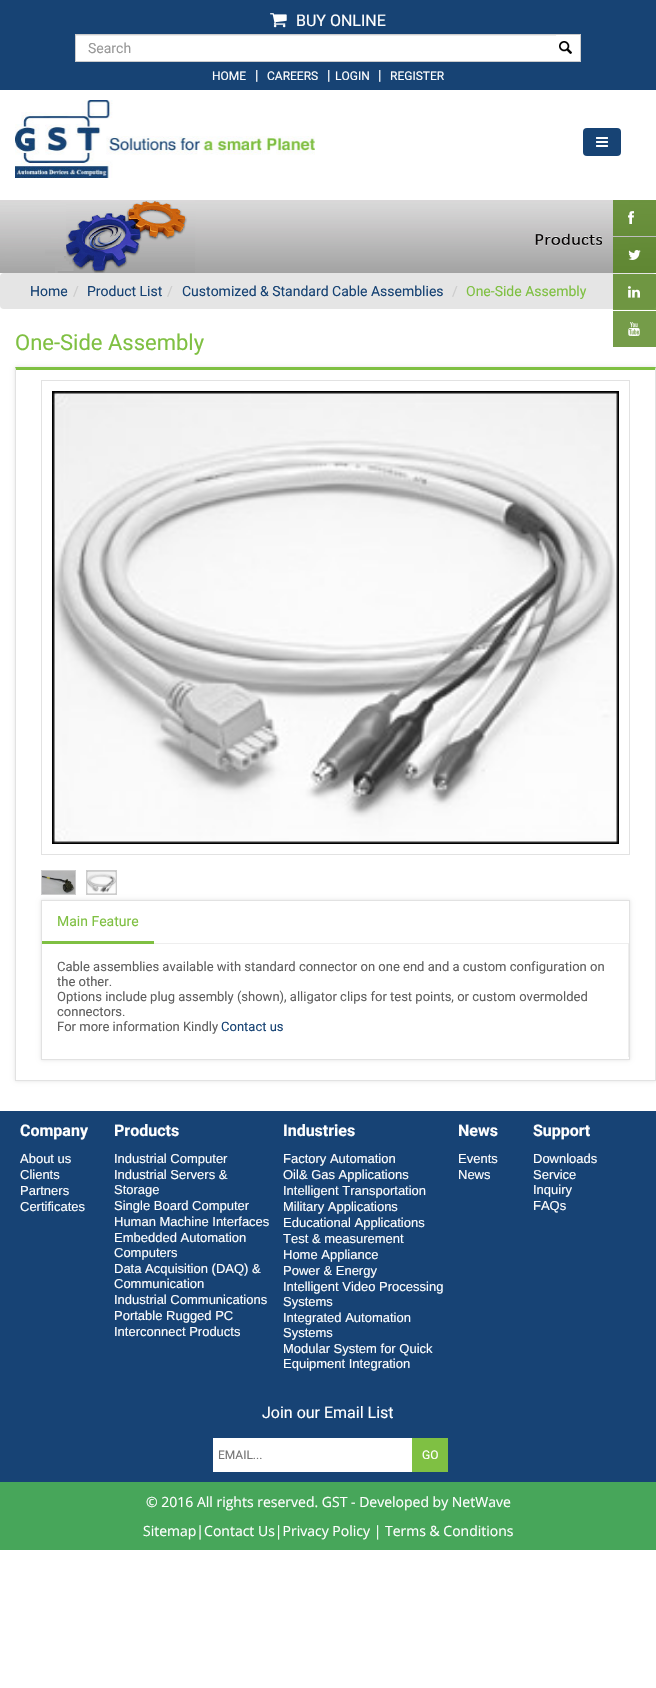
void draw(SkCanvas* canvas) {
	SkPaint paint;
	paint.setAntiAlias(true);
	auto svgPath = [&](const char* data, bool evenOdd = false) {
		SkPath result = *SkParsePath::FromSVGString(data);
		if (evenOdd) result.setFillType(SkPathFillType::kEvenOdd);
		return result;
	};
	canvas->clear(0xffffffff);
	paint.setColor(0xff174374);
	canvas->drawRect(SkRect::MakeXYWH(0, 0, 656, 90), paint);
	canvas->drawImageRect(SkImages::DeferredFromEncodedData(SkData::MakeFromFileName("img1.png")), SkRect::MakeXYWH(270, 13, 17, 15), SkSamplingOptions());
	SkFont f1(fontMgr->matchFamilyStyle("Roboto", SkFontStyle::Normal()), 16);
	f1.setSubpixel(true);
	paint.setColor(0xffffffff);
	canvas->drawString("BUY ONLINE", 296, 26, f1, paint);
	canvas->drawRect(SkRect::MakeXYWH(556, 35, 24, 26), paint);
	canvas->drawImageRect(SkImages::DeferredFromEncodedData(SkData::MakeFromFileName("img2.png")), SkRect::MakeXYWH(559, 41, 13, 13), SkSamplingOptions());
	paint.setStroke(true);
	paint.setStrokeWidth(1);
	paint.setColor(0xffcccccc);
	canvas->drawRect(SkRect::MakeXYWH(555.5, 34.5, 25, 27), paint);
	paint.setStroke(false);
	paint.setColor(0xffffffff);
	canvas->drawRect(SkRect::MakeXYWH(76, 36, 480, 25), paint);
	paint.setColor(0xffececec);
	canvas->drawRect(SkRect::MakeXYWH(76, 35, 480, 1), paint);
	paint.setColor(0xffcccccc);
	canvas->drawRect(SkRect::MakeXYWH(75, 34, 481, 1), paint);
	canvas->drawRect(SkRect::MakeXYWH(75, 61, 481, 1), paint);
	canvas->drawRect(SkRect::MakeXYWH(75, 34, 1, 28), paint);
	SkFont f2(fontMgr->matchFamilyStyle("Roboto", SkFontStyle::Normal()), 14);
	f2.setSubpixel(true);
	paint.setColor(0xff999999);
	canvas->drawString("Search", 88, 53, f2, paint);
	SkFont f3(fontMgr->matchFamilyStyle("Roboto", SkFontStyle::Normal()), 12);
	f3.setSubpixel(true);
	paint.setColor(0xffffffff);
	canvas->drawString("HOME", 212, 80, f3, paint);
	canvas->drawString("|", 255, 80, f2, paint);
	canvas->drawString("CAREERS", 267, 80, f3, paint);
	canvas->drawString("|", 327, 80, f2, paint);
	canvas->drawString("LOGIN", 335, 80, f3, paint);
	canvas->drawString("|", 378, 80, f2, paint);
	canvas->drawString("REGISTER", 390, 80, f3, paint);
	canvas->drawImageRect(SkImages::DeferredFromEncodedData(SkData::MakeFromFileName("img3.png")), SkRect::MakeXYWH(15, 100, 300, 78), SkSamplingOptions());
	canvas->drawImageRect(SkImages::DeferredFromEncodedData(SkData::MakeFromFileName("img4.png")), SkRect::MakeXYWH(0, 200, 656, 73), SkSamplingOptions());
	paint.setColor(0xffe5e5e5);
	canvas->drawRoundRect(SkRect::MakeXYWH(0, 273, 656, 36), 4, 4, paint);
	paint.setColor(0xff174374);
	canvas->drawString("Home", 30, 296, f2, paint);
	paint.setColor(0xffcccccc);
	canvas->drawString("/", 73, 296, f2, paint);
	paint.setColor(0xff174374);
	canvas->drawString("Product List", 87, 296, f2, paint);
	paint.setColor(0xffcccccc);
	canvas->drawString("/", 167, 296, f2, paint);
	paint.setColor(0xff174374);
	canvas->drawString("Customized & Standard Cable Assemblies", 182, 296, f2, paint);
	paint.setColor(0xffcccccc);
	canvas->drawString("/", 452, 296, f2, paint);
	paint.setColor(0xff7fc042);
	canvas->drawString("One-Side Assembly", 466, 296, f2, paint);
	SkFont f4(fontMgr->matchFamilyStyle("Roboto", SkFontStyle::Normal()), 22);
	f4.setSubpixel(true);
	canvas->drawString("One-Side Assembly", 15, 350, f4, paint);
	canvas->save();
	canvas->clipPath(svgPath("M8 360H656V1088H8ZM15 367H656V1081H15Z", true), true);
	paint.setColor(0xffe2e2e2);
	paint.setMaskFilter(SkMaskFilter::MakeBlur(kNormal_SkBlurStyle, 2));
	canvas->drawRect(SkRect::MakeXYWH(15, 367, 641, 714), paint);
	paint.setMaskFilter(nullptr);
	canvas->restore();
	paint.setColor(0xff7fc042);
	canvas->drawPath(svgPath("M15 367H656L655 370H16Z"), paint);
	paint.setColor(0xffe2e2e2);
	canvas->drawPath(svgPath("M656 367V1081L655 1080V370Z"), paint);
	canvas->drawRect(SkRect::MakeXYWH(15, 1080, 641, 1), paint);
	canvas->drawPath(svgPath("M15 1081V367L16 370V1080Z"), paint);
	paint.setStroke(true);
	canvas->drawRect(SkRect::MakeXYWH(41.5, 380.5, 588, 474), paint);
	canvas->drawImageRect(SkImages::DeferredFromEncodedData(SkData::MakeFromFileName("img5.png")), SkRect::MakeXYWH(52, 391, 567, 453), SkSamplingOptions());
	paint.setColor(0xffcccccc);
	canvas->drawRect(SkRect::MakeXYWH(41.5, 870.5, 34, 24), paint);
	canvas->drawImageRect(SkImages::DeferredFromEncodedData(SkData::MakeFromFileName("img6.png")), SkRect::MakeXYWH(42, 871, 33, 23), SkSamplingOptions());
	canvas->drawRect(SkRect::MakeXYWH(86.5, 870.5, 30, 24), paint);
	canvas->drawImageRect(SkImages::DeferredFromEncodedData(SkData::MakeFromFileName("img7.png")), SkRect::MakeXYWH(87, 871, 29, 23), SkSamplingOptions());
	canvas->save();
	canvas->clipPath(svgPath("M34 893H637V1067H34ZM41 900H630V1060H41Z", true), true);
	paint.setStroke(false);
	paint.setColor(0xffe2e2e2);
	paint.setMaskFilter(SkMaskFilter::MakeBlur(kNormal_SkBlurStyle, 2));
	canvas->drawRect(SkRect::MakeXYWH(41, 900, 589, 160), paint);
	paint.setMaskFilter(nullptr);
	canvas->restore();
	paint.setStroke(true);
	canvas->drawRect(SkRect::MakeXYWH(41.5, 900.5, 588, 159), paint);
	paint.setStroke(false);
	paint.setColor(0xffeeeeee);
	canvas->drawRect(SkRect::MakeXYWH(154, 943, 475, 1), paint);
	paint.setColor(0xff7fc042);
	canvas->drawRect(SkRect::MakeXYWH(42, 941, 112, 3), paint);
	canvas->drawString("Main Feature", 57, 926, f2, paint);
	paint.setColor(0xffeeeeee);
	canvas->drawRect(SkRect::MakeXYWH(628, 944, 1, 113), paint);
	SkFont f5(fontMgr->matchFamilyStyle("Roboto", SkFontStyle::Normal()), 13);
	f5.setSubpixel(true);
	paint.setColor(0xff5f5f5f);
	canvas->drawString("Cable assemblies available with standard connector on one end and a custom configuration on", 57, 971, f5, paint);
	canvas->drawString("the other.", 57, 986, f5, paint);
	canvas->drawString("Options include plug assembly (shown), alligator clips for test points, or custom overmolded", 57, 1001, f5, paint);
	canvas->drawString("connectors.", 57, 1016, f5, paint);
	canvas->drawString("For more information Kindly", 57, 1031, f5, paint);
	paint.setColor(0xff174374);
	canvas->drawString("Contact us", 221, 1031, f5, paint);
	paint.setColor(0xc2497d0f);
	canvas->drawRect(SkRect::MakeXYWH(613, 200, 43, 36), paint);
	canvas->drawImageRect(SkImages::DeferredFromEncodedData(SkData::MakeFromFileName("img8.png")), SkRect::MakeXYWH(628, 211, 6, 13), SkSamplingOptions());
	canvas->drawRect(SkRect::MakeXYWH(613, 237, 43, 36), paint);
	canvas->drawImageRect(SkImages::DeferredFromEncodedData(SkData::MakeFromFileName("img9.png")), SkRect::MakeXYWH(628, 250, 13, 10), SkSamplingOptions());
	canvas->drawRect(SkRect::MakeXYWH(613, 274, 43, 36), paint);
	canvas->drawImageRect(SkImages::DeferredFromEncodedData(SkData::MakeFromFileName("img10.png")), SkRect::MakeXYWH(628, 286, 12, 12), SkSamplingOptions());
	paint.setColor(0xff759c49);
	canvas->drawRect(SkRect::MakeXYWH(613, 311, 43, 36), paint);
	canvas->drawImageRect(SkImages::DeferredFromEncodedData(SkData::MakeFromFileName("img11.png")), SkRect::MakeXYWH(628, 322, 12, 14), SkSamplingOptions());
	paint.setColor(0xff174375);
	canvas->drawRect(SkRect::MakeXYWH(0, 1111, 656, 371), paint);
	SkFont f6(fontMgr->matchFamilyStyle("Roboto", SkFontStyle::Bold()), 16);
	f6.setSubpixel(true);
	paint.setColor(0xffffffff);
	canvas->drawString("Company", 20, 1136, f6, paint);
	SkFont f7(fontMgr->matchFamilyStyle("Liberation Sans", SkFontStyle::Normal()), 13);
	f7.setSubpixel(true);
	canvas->drawString("About us", 20, 1163, f7, paint);
	canvas->drawString("Clients", 20, 1179, f7, paint);
	canvas->drawString("Partners", 20, 1195, f7, paint);
	canvas->drawString("Certificates", 20, 1211, f7, paint);
	canvas->drawString("Products", 114, 1136, f6, paint);
	canvas->drawString("Industrial Computer", 114, 1163, f7, paint);
	canvas->drawString("Industrial Servers &", 114, 1179, f7, paint);
	canvas->drawString("Storage", 114, 1194, f7, paint);
	canvas->drawString("Single Board Computer", 114, 1210, f7, paint);
	canvas->drawString("Human Machine Interfaces", 114, 1226, f7, paint);
	canvas->drawString("Embedded Automation", 114, 1242, f7, paint);
	canvas->drawString("Computers", 114, 1257, f7, paint);
	canvas->drawString("Data Acquisition (DAQ) &", 114, 1273, f7, paint);
	canvas->drawString("Communication", 114, 1288, f7, paint);
	canvas->drawString("Industrial Communications", 114, 1304, f7, paint);
	canvas->drawString("Portable Rugged PC", 114, 1320, f7, paint);
	canvas->drawString("Interconnect Products", 114, 1336, f7, paint);
	canvas->drawString("Industries", 283, 1136, f6, paint);
	canvas->drawString("Factory Automation", 283, 1163, f7, paint);
	canvas->drawString("Oil& Gas Applications", 283, 1179, f7, paint);
	canvas->drawString("Intelligent Transportation", 283, 1195, f7, paint);
	canvas->drawString("Military Applications", 283, 1211, f7, paint);
	canvas->drawString("Educational Applications", 283, 1227, f7, paint);
	canvas->drawString("Test & measurement", 283, 1243, f7, paint);
	canvas->drawString("Home Appliance", 283, 1259, f7, paint);
	canvas->drawString("Power & Energy", 283, 1275, f7, paint);
	canvas->drawString("Intelligent Video Processing", 283, 1291, f7, paint);
	canvas->drawString("Systems", 283, 1306, f7, paint);
	canvas->drawString("Integrated Automation", 283, 1322, f7, paint);
	canvas->drawString("Systems", 283, 1337, f7, paint);
	canvas->drawString("Modular System for Quick", 283, 1353, f7, paint);
	canvas->drawString("Equipment Integration", 283, 1368, f7, paint);
	canvas->drawString("News", 458, 1136, f6, paint);
	canvas->drawString("Events", 458, 1163, f7, paint);
	canvas->drawString("News", 458, 1179, f7, paint);
	canvas->drawString("Support", 533, 1136, f6, paint);
	canvas->drawString("Downloads", 533, 1163, f7, paint);
	canvas->drawString("Service", 533, 1179, f7, paint);
	canvas->drawString("Inquiry", 533, 1194, f7, paint);
	canvas->drawString("FAQs", 533, 1210, f7, paint);
	canvas->drawString("Join our Email List", 262, 1418, f1, paint);
	canvas->drawRect(SkRect::MakeXYWH(213, 1438, 199, 34), paint);
	paint.setColor(0xff757575);
	canvas->drawString("EMAIL...", 218, 1459, f3, paint);
	paint.setColor(0xff7fc043);
	canvas->drawRect(SkRect::MakeXYWH(412, 1438, 36, 34), paint);
	paint.setColor(0xffffffff);
	canvas->drawString("GO", 422, 1459, f3, paint);
	paint.setColor(0xff47a65a);
	canvas->drawRect(SkRect::MakeXYWH(0, 1482, 656, 68), paint);
	SkFont f8(fontMgr->matchFamilyStyle("Open Sans", SkFontStyle::Normal()), 14);
	f8.setSubpixel(true);
	paint.setColor(0xffffffff);
	canvas->drawString("© 2016 All rights reserved. GST - Developed by NetWave", 146, 1507, f8, paint);
	canvas->drawString("Sitemap|Contact Us|Privacy Policy | Terms & Conditions", 143, 1536, f8, paint);
	paint.setColor(0xff174374);
	canvas->drawRoundRect(SkRect::MakeXYWH(583, 128, 38, 28), 4, 4, paint);
	canvas->drawImageRect(SkImages::DeferredFromEncodedData(SkData::MakeFromFileName("img12.png")), SkRect::MakeXYWH(596, 137, 12, 10), SkSamplingOptions());
}
